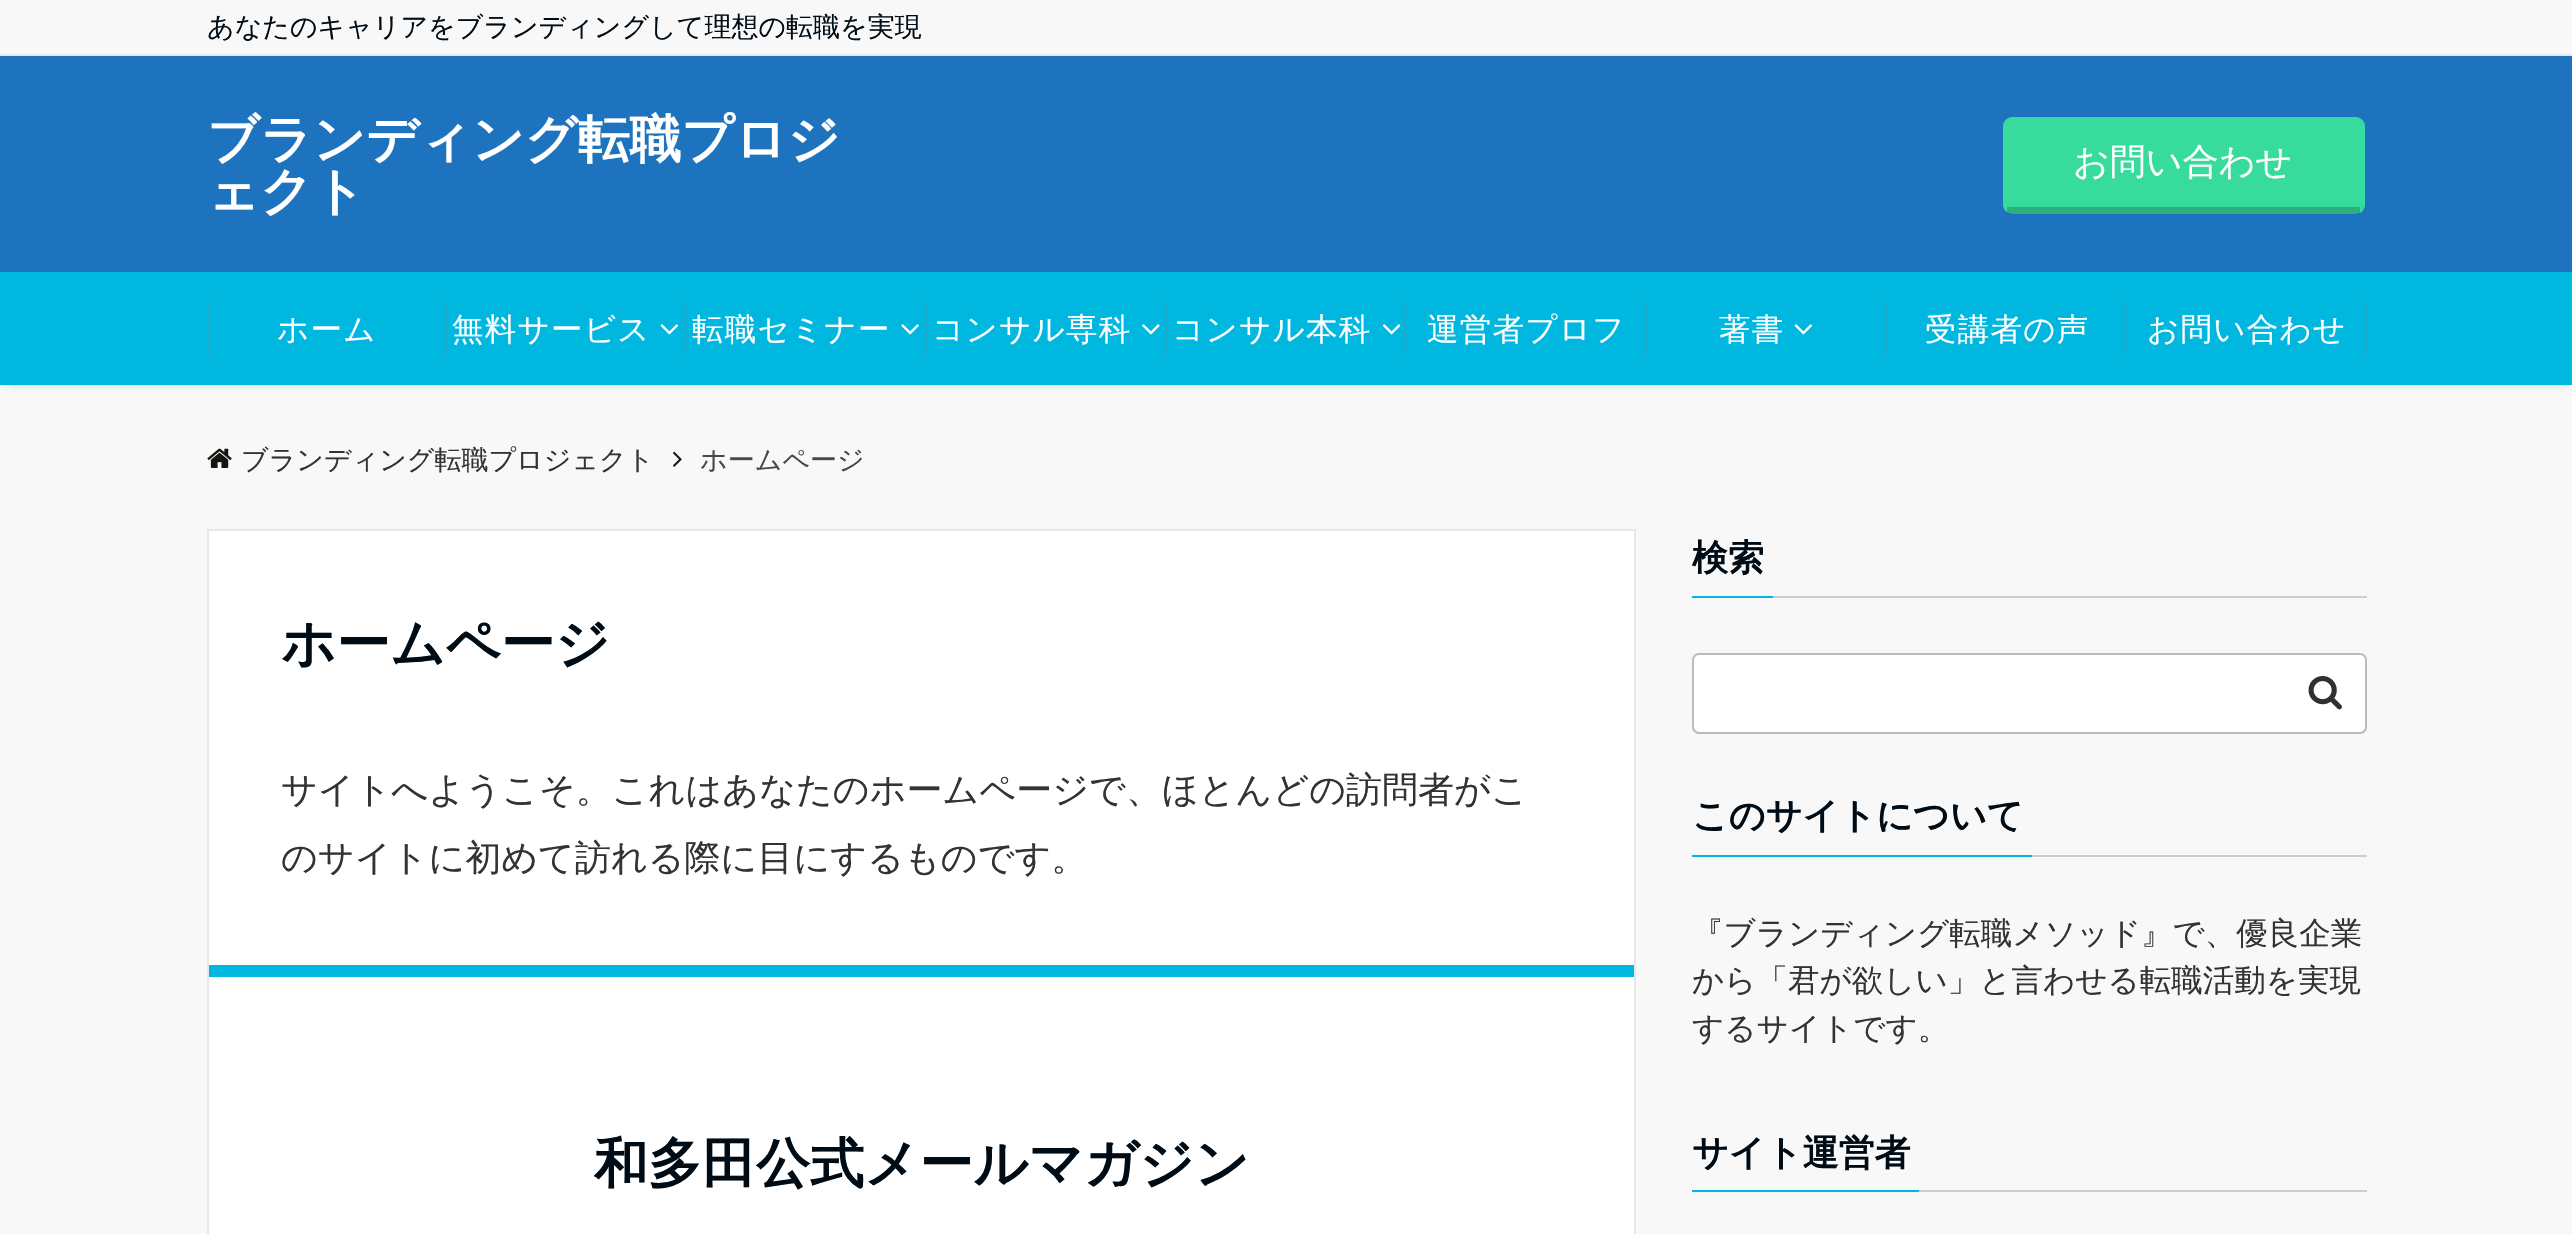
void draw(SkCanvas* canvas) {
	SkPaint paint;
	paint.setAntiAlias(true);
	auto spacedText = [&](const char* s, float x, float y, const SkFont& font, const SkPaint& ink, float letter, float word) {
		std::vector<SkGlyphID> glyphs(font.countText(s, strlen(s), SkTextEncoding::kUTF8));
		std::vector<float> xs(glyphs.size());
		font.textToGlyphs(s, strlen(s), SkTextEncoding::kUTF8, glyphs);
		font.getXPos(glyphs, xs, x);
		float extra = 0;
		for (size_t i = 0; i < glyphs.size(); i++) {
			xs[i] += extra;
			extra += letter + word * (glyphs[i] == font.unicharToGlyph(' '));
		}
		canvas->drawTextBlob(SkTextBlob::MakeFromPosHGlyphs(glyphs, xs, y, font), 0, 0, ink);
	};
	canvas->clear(0xfff8f8f8);
	paint.setColor(0xffe5e7e8);
	canvas->drawRect(SkRect::MakeXYWH(0, 54, 2572, 2), paint);
	SkFont f1(fontMgr->matchFamilyStyle("WenQuanYi Zen Hei", SkFontStyle(500, SkFontStyle::kNormal_Width, SkFontStyle::kUpright_Slant)), 27);
	f1.setSubpixel(true);
	paint.setColor(0xff000c15);
	canvas->drawString("あなたのキャリアをブランディングして理想の転職を実現", 207, 36, f1, paint);
	paint.setColor(0xff1e73be);
	canvas->drawRect(SkRect::MakeXYWH(0, 56, 2572, 216), paint);
	SkFont f2(fontMgr->matchFamilyStyle("WenQuanYi Zen Hei", SkFontStyle::Bold()), 51.75);
	f2.setSubpixel(true);
	paint.setColor(0xffffffff);
	canvas->drawString("ブランディング転職プロジ", 207, 157, f2, paint);
	canvas->drawString("ェクト", 207, 209, f2, paint);
	paint.setColor(0xff37db9b);
	canvas->drawRoundRect(SkRect::MakeXYWH(2003, 117, 362, 97), 9, 9, paint);
	paint.setColor(0x33000000);
	canvas->drawRect(SkRect::MakeXYWH(2007, 207, 353, 7), paint);
	SkFont f3(fontMgr->matchFamilyStyle("WenQuanYi Zen Hei", SkFontStyle(500, SkFontStyle::kNormal_Width, SkFontStyle::kUpright_Slant)), 36);
	f3.setSubpixel(true);
	paint.setColor(0xffffffff);
	canvas->drawString("お問い合わせ", 2073, 174, f3, paint);
	paint.setColor(0x33000000);
	paint.setMaskFilter(SkMaskFilter::MakeBlur(kNormal_SkBlurStyle, 4.5));
	canvas->drawRect(SkRect::MakeXYWH(7, 284, 2560, 99), paint);
	paint.setMaskFilter(nullptr);
	paint.setColor(0xff00b7e0);
	canvas->drawRect(SkRect::MakeXYWH(0, 272, 2572, 113), paint);
	paint.setColor(0xff20a7cb);
	canvas->drawRect(SkRect::MakeXYWH(207, 302, 2, 54), paint);
	SkFont f4(fontMgr->matchFamilyStyle("WenQuanYi Zen Hei", SkFontStyle(500, SkFontStyle::kNormal_Width, SkFontStyle::kUpright_Slant)), 31.5);
	f4.setSubpixel(true);
	paint.setColor(0xffffffff);
	spacedText("ホーム", 277, 340, f4, paint, 1.25, 0);
	paint.setColor(0xff20a7cb);
	canvas->drawRect(SkRect::MakeXYWH(446, 302, 2, 54), paint);
	paint.setColor(0xffffffff);
	spacedText("無料サービス", 452, 340, f4, paint, 1.25, 0);
	canvas->drawImageRect(SkImages::DeferredFromEncodedData(SkData::MakeFromFileName("img1.png")), SkRect::MakeXYWH(660, 324, 19, 11), SkSamplingOptions());
	paint.setColor(0xff20a7cb);
	canvas->drawRect(SkRect::MakeXYWH(684, 302, 2, 54), paint);
	paint.setColor(0xffffffff);
	spacedText("転職セミナー", 692, 340, f4, paint, 1.25, 0);
	canvas->drawImageRect(SkImages::DeferredFromEncodedData(SkData::MakeFromFileName("img2.png")), SkRect::MakeXYWH(901, 324, 18, 11), SkSamplingOptions());
	paint.setColor(0xff20a7cb);
	canvas->drawRect(SkRect::MakeXYWH(925, 302, 2, 54), paint);
	paint.setColor(0xffffffff);
	spacedText("コンサル専科", 932, 340, f4, paint, 1.25, 0);
	canvas->drawImageRect(SkImages::DeferredFromEncodedData(SkData::MakeFromFileName("img3.png")), SkRect::MakeXYWH(1142, 324, 18, 11), SkSamplingOptions());
	paint.setColor(0xff20a7cb);
	canvas->drawRect(SkRect::MakeXYWH(1166, 302, 2, 54), paint);
	paint.setColor(0xffffffff);
	spacedText("コンサル本科", 1172, 340, f4, paint, 1.25, 0);
	canvas->drawImageRect(SkImages::DeferredFromEncodedData(SkData::MakeFromFileName("img4.png")), SkRect::MakeXYWH(1382, 324, 19, 11), SkSamplingOptions());
	paint.setColor(0xff20a7cb);
	canvas->drawRect(SkRect::MakeXYWH(1404, 302, 2, 54), paint);
	paint.setColor(0xffffffff);
	spacedText("運営者プロフ", 1427, 340, f4, paint, 1.25, 0);
	paint.setColor(0xff20a7cb);
	canvas->drawRect(SkRect::MakeXYWH(1645, 302, 2, 54), paint);
	paint.setColor(0xffffffff);
	spacedText("著書", 1719, 340, f4, paint, 1.25, 0);
	canvas->drawImageRect(SkImages::DeferredFromEncodedData(SkData::MakeFromFileName("img1.png")), SkRect::MakeXYWH(1794, 324, 19, 11), SkSamplingOptions());
	paint.setColor(0xff20a7cb);
	canvas->drawRect(SkRect::MakeXYWH(1886, 302, 2, 54), paint);
	paint.setColor(0xffffffff);
	spacedText("受講者の声", 1925, 340, f4, paint, 1.25, 0);
	paint.setColor(0xff20a7cb);
	canvas->drawRect(SkRect::MakeXYWH(2124, 302, 2, 54), paint);
	paint.setColor(0xffffffff);
	spacedText("お問い合わせ", 2147, 340, f4, paint, 1.25, 0);
	paint.setColor(0xff20a7cb);
	canvas->drawRect(SkRect::MakeXYWH(2365, 302, 2, 54), paint);
	canvas->drawImageRect(SkImages::DeferredFromEncodedData(SkData::MakeFromFileName("img5.png")), SkRect::MakeXYWH(207, 448, 25, 20), SkSamplingOptions());
	paint.setColor(0xff333333);
	canvas->drawString("ブランディング転職プロジェクト", 241, 469, f1, paint);
	canvas->drawImageRect(SkImages::DeferredFromEncodedData(SkData::MakeFromFileName("img6.png")), SkRect::MakeXYWH(673, 451, 9, 16), SkSamplingOptions());
	paint.setColor(0xff484848);
	canvas->drawString("ホームページ", 700, 469, f1, paint);
	paint.setColor(0xffffffff);
	canvas->drawRect(SkRect::MakeXYWH(208, 530, 1427, 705), paint);
	paint.setStroke(true);
	paint.setStrokeWidth(2);
	paint.setColor(0xffe5e7e8);
	canvas->drawRect(SkRect::MakeXYWH(208, 530, 1427, 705), paint);
	SkFont f5(fontMgr->matchFamilyStyle("WenQuanYi Zen Hei", SkFontStyle::Bold()), 54);
	f5.setSubpixel(true);
	paint.setStroke(false);
	paint.setColor(0xff000c15);
	canvas->drawString("ホームページ", 281, 662, f5, paint);
	paint.setColor(0xff333333);
	canvas->drawString("サイトへようこそ。これはあなたのホームページで、ほとんどの訪問者がこ", 281, 802, f3, paint);
	canvas->drawString("のサイトに初めて訪れる際に目にするものです。", 281, 870, f3, paint);
	paint.setColor(0xff00b7e0);
	canvas->drawRect(SkRect::MakeXYWH(209, 965, 1425, 12), paint);
	paint.setColor(0xff000c15);
	canvas->drawString("和多田公式メールマガジン", 594, 1182, f5, paint);
	paint.setColor(0xffcccccc);
	canvas->drawRect(SkRect::MakeXYWH(1773, 596, 594, 2), paint);
	paint.setColor(0xff00b7e0);
	canvas->drawRect(SkRect::MakeXYWH(1692, 596, 81, 2), paint);
	SkFont f6(fontMgr->matchFamilyStyle("WenQuanYi Zen Hei", SkFontStyle::Bold()), 36);
	f6.setSubpixel(true);
	paint.setColor(0xff000c15);
	canvas->drawString("検索", 1692, 570, f6, paint);
	paint.setColor(0xffffffff);
	canvas->drawRoundRect(SkRect::MakeXYWH(1693, 654, 673, 79), 6, 6, paint);
	paint.setStroke(true);
	paint.setColor(0xffb8bcc0);
	canvas->drawRoundRect(SkRect::MakeXYWH(1693, 654, 673, 79), 6, 6, paint);
	canvas->drawImageRect(SkImages::DeferredFromEncodedData(SkData::MakeFromFileName("img7.png")), SkRect::MakeXYWH(2308, 676, 34, 34), SkSamplingOptions());
	paint.setStroke(false);
	paint.setColor(0xffcccccc);
	canvas->drawRect(SkRect::MakeXYWH(2032, 855, 335, 2), paint);
	paint.setColor(0xff00b7e0);
	canvas->drawRect(SkRect::MakeXYWH(1692, 855, 340, 2), paint);
	paint.setColor(0xff000c15);
	canvas->drawString("このサイトについて", 1692, 828, f6, paint);
	paint.setColor(0xff333333);
	canvas->drawString("『ブランディング転職メソッド』で、優良企業", 1692, 944, f4, paint);
	canvas->drawString("から「君が欲しい」と言わせる転職活動を実現", 1692, 991, f4, paint);
	canvas->drawString("するサイトです。", 1692, 1039, f4, paint);
	paint.setColor(0xffcccccc);
	canvas->drawRect(SkRect::MakeXYWH(1919, 1190, 448, 2), paint);
	paint.setColor(0xff00b7e0);
	canvas->drawRect(SkRect::MakeXYWH(1692, 1190, 227, 2), paint);
	paint.setColor(0xff000c15);
	canvas->drawString("サイト運営者", 1692, 1165, f6, paint);
}
